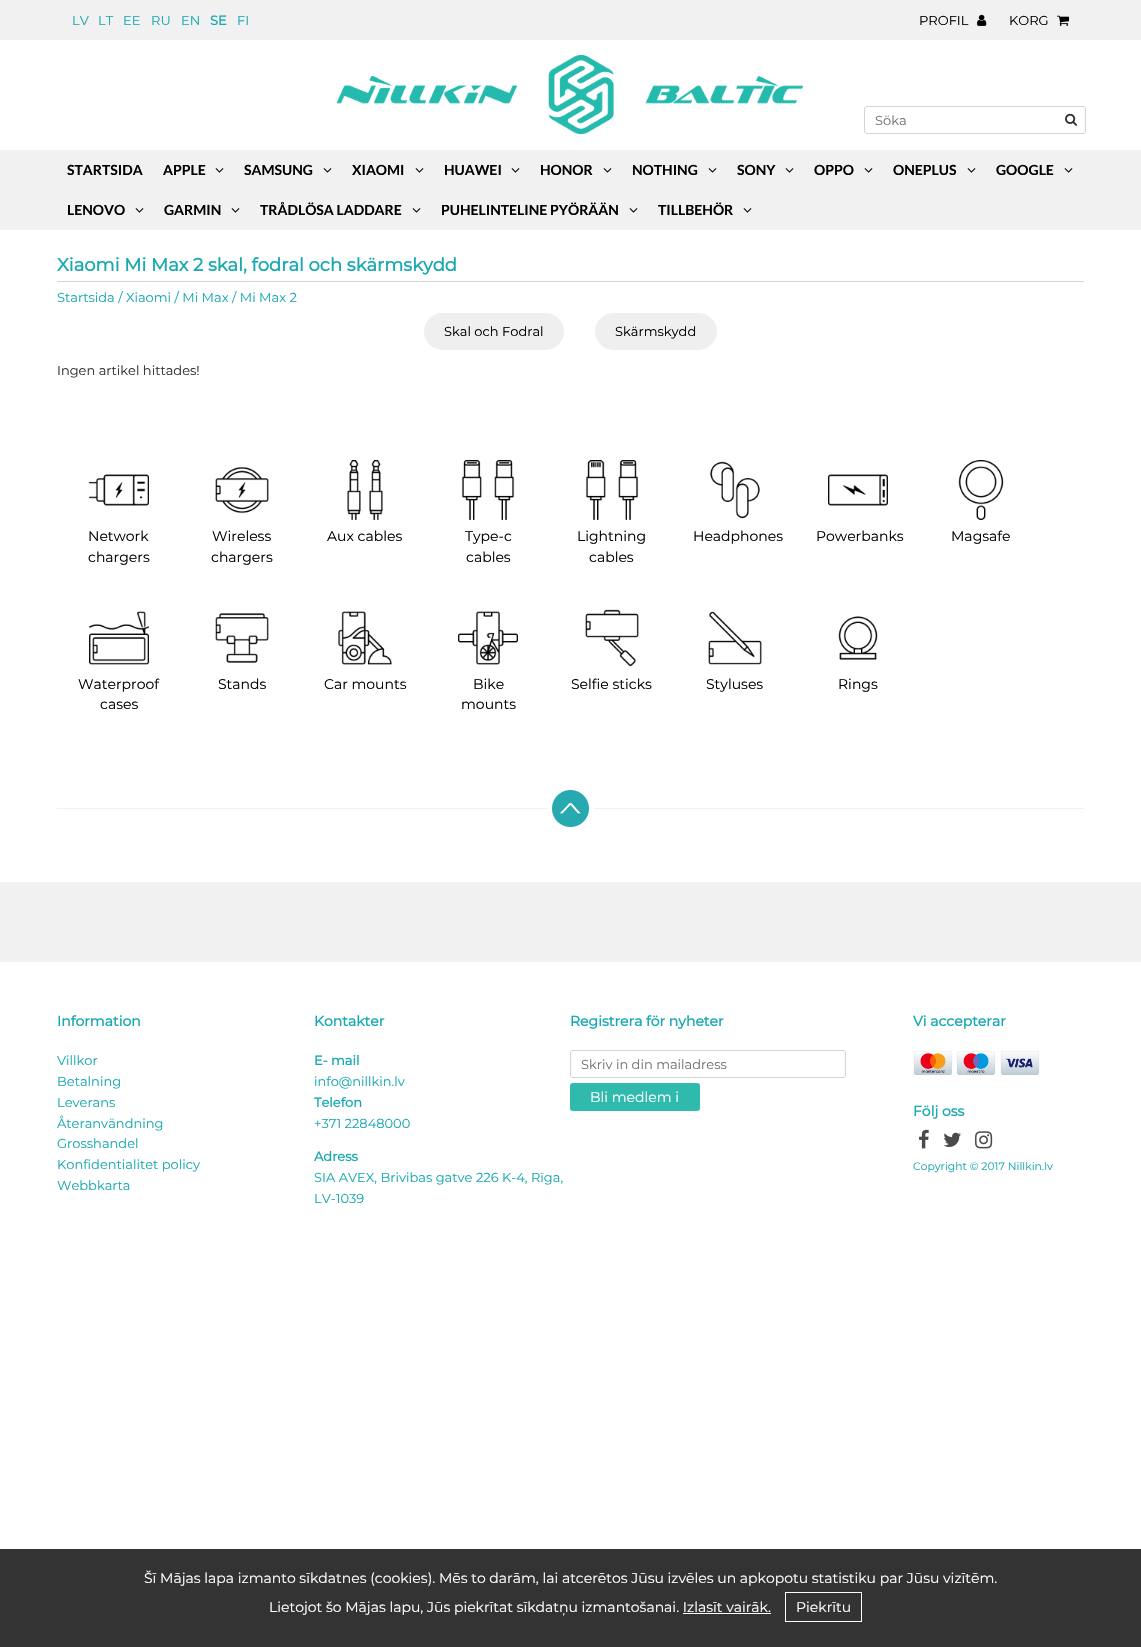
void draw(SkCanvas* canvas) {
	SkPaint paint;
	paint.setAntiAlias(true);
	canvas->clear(0xffffffff);
	paint.setColor(0xfff1f1f1);
	canvas->drawRect(SkRect::MakeXYWH(0, 0, 1141, 40), paint);
	SkFont f1(fontMgr->matchFamilyStyle("Montserrat", SkFontStyle::Normal()), 13);
	f1.setSubpixel(true);
	paint.setColor(0xff19a9b1);
	canvas->drawString("LV", 72, 25, f1, paint);
	canvas->drawString("LT", 98, 25, f1, paint);
	canvas->drawString("EE", 123, 25, f1, paint);
	canvas->drawString("RU", 151, 25, f1, paint);
	canvas->drawString("EN", 181, 25, f1, paint);
	SkFont f2(fontMgr->matchFamilyStyle("Montserrat", SkFontStyle::Bold()), 13);
	f2.setSubpixel(true);
	canvas->drawString("SE", 210, 25, f2, paint);
	canvas->drawString("FI", 237, 25, f1, paint);
	paint.setColor(0xff000000);
	canvas->drawString("PROFIL", 919, 25, f1, paint);
	canvas->drawImageRect(SkImages::DeferredFromEncodedData(SkData::MakeFromFileName("img1.png")), SkRect::MakeXYWH(977, 14, 10, 12), SkSamplingOptions());
	canvas->drawString("KORG", 1009, 25, f1, paint);
	canvas->drawImageRect(SkImages::DeferredFromEncodedData(SkData::MakeFromFileName("img2.png")), SkRect::MakeXYWH(1057, 15, 13, 11), SkSamplingOptions());
	canvas->drawImageRect(SkImages::DeferredFromEncodedData(SkData::MakeFromFileName("img3.png")), SkRect::MakeXYWH(337, 55, 466, 79), SkSamplingOptions());
	paint.setStroke(true);
	paint.setStrokeWidth(1);
	paint.setColor(0xffd5d5d5);
	canvas->drawRoundRect(SkRect::MakeXYWH(864.5, 106.5, 221, 27), 2.5, 2.5, paint);
	paint.setStroke(false);
	paint.setColor(0xff757575);
	canvas->drawString("Söka", 875, 125, f1, paint);
	canvas->drawImageRect(SkImages::DeferredFromEncodedData(SkData::MakeFromFileName("img4.png")), SkRect::MakeXYWH(1065, 113, 12, 13), SkSamplingOptions());
	paint.setColor(0xfff1f1f1);
	canvas->drawRect(SkRect::MakeXYWH(0, 150, 1141, 80), paint);
	SkFont f3(fontMgr->matchFamilyStyle("Lato", SkFontStyle::Bold()), 14);
	f3.setSubpixel(true);
	paint.setColor(0xff000000);
	canvas->drawString("STARTSIDA", 67, 175, f3, paint);
	canvas->drawString("APPLE", 163, 175, f3, paint);
	canvas->drawImageRect(SkImages::DeferredFromEncodedData(SkData::MakeFromFileName("img5.png")), SkRect::MakeXYWH(215, 168, 9, 5), SkSamplingOptions());
	canvas->drawString("SAMSUNG", 244, 175, f3, paint);
	canvas->drawImageRect(SkImages::DeferredFromEncodedData(SkData::MakeFromFileName("img5.png")), SkRect::MakeXYWH(323, 168, 9, 5), SkSamplingOptions());
	canvas->drawString("XIAOMI", 352, 175, f3, paint);
	canvas->drawImageRect(SkImages::DeferredFromEncodedData(SkData::MakeFromFileName("img5.png")), SkRect::MakeXYWH(415, 168, 9, 5), SkSamplingOptions());
	canvas->drawString("HUAWEI", 444, 175, f3, paint);
	canvas->drawImageRect(SkImages::DeferredFromEncodedData(SkData::MakeFromFileName("img5.png")), SkRect::MakeXYWH(511, 168, 9, 5), SkSamplingOptions());
	canvas->drawString("HONOR", 540, 175, f3, paint);
	canvas->drawImageRect(SkImages::DeferredFromEncodedData(SkData::MakeFromFileName("img5.png")), SkRect::MakeXYWH(603, 168, 9, 5), SkSamplingOptions());
	canvas->drawString("NOTHING", 632, 175, f3, paint);
	canvas->drawImageRect(SkImages::DeferredFromEncodedData(SkData::MakeFromFileName("img5.png")), SkRect::MakeXYWH(708, 168, 9, 5), SkSamplingOptions());
	canvas->drawString("SONY", 737, 175, f3, paint);
	canvas->drawImageRect(SkImages::DeferredFromEncodedData(SkData::MakeFromFileName("img5.png")), SkRect::MakeXYWH(785, 168, 9, 5), SkSamplingOptions());
	canvas->drawString("OPPO", 814, 175, f3, paint);
	canvas->drawImageRect(SkImages::DeferredFromEncodedData(SkData::MakeFromFileName("img5.png")), SkRect::MakeXYWH(864, 168, 9, 5), SkSamplingOptions());
	canvas->drawString("ONEPLUS", 893, 175, f3, paint);
	canvas->drawImageRect(SkImages::DeferredFromEncodedData(SkData::MakeFromFileName("img5.png")), SkRect::MakeXYWH(967, 168, 9, 5), SkSamplingOptions());
	canvas->drawString("GOOGLE", 996, 175, f3, paint);
	canvas->drawImageRect(SkImages::DeferredFromEncodedData(SkData::MakeFromFileName("img5.png")), SkRect::MakeXYWH(1064, 168, 9, 5), SkSamplingOptions());
	canvas->drawString("LENOVO", 67, 215, f3, paint);
	canvas->drawImageRect(SkImages::DeferredFromEncodedData(SkData::MakeFromFileName("img5.png")), SkRect::MakeXYWH(135, 208, 9, 5), SkSamplingOptions());
	canvas->drawString("GARMIN", 164, 215, f3, paint);
	canvas->drawImageRect(SkImages::DeferredFromEncodedData(SkData::MakeFromFileName("img5.png")), SkRect::MakeXYWH(231, 208, 9, 5), SkSamplingOptions());
	canvas->drawString("TRÅDLÖSA LADDARE", 260, 215, f3, paint);
	canvas->drawImageRect(SkImages::DeferredFromEncodedData(SkData::MakeFromFileName("img5.png")), SkRect::MakeXYWH(412, 208, 9, 5), SkSamplingOptions());
	canvas->drawString("PUHELINTELINE PYÖRÄÄN", 441, 215, f3, paint);
	canvas->drawImageRect(SkImages::DeferredFromEncodedData(SkData::MakeFromFileName("img5.png")), SkRect::MakeXYWH(629, 208, 9, 5), SkSamplingOptions());
	canvas->drawString("TILLBEHÖR", 658, 215, f3, paint);
	canvas->drawImageRect(SkImages::DeferredFromEncodedData(SkData::MakeFromFileName("img5.png")), SkRect::MakeXYWH(743, 208, 9, 5), SkSamplingOptions());
	paint.setColor(0xffd5d5d5);
	canvas->drawRect(SkRect::MakeXYWH(57, 281, 1027, 1), paint);
	SkFont f4(fontMgr->matchFamilyStyle("Montserrat", SkFontStyle::Bold()), 18);
	f4.setSubpixel(true);
	paint.setColor(0xff19a9b1);
	canvas->drawString("Xiaomi Mi Max 2 skal, fodral och skärmskydd", 57, 271, f4, paint);
	canvas->drawString("Startsida / Xiaomi / Mi Max / Mi Max 2", 57, 302, f1, paint);
	paint.setColor(0xffefefef);
	canvas->drawRoundRect(SkRect::MakeXYWH(424, 313, 140, 37), 18.5, 18.5, paint);
	paint.setColor(0xff000000);
	canvas->drawString("Skal och Fodral", 444, 336, f1, paint);
	paint.setColor(0xffefefef);
	canvas->drawRoundRect(SkRect::MakeXYWH(595, 313, 122, 37), 18.5, 18.5, paint);
	paint.setColor(0xff000000);
	canvas->drawString("Skärmskydd", 615, 336, f1, paint);
	paint.setColor(0xff333333);
	canvas->drawString("Ingen artikel hittades!", 57, 375, f1, paint);
	canvas->drawImageRect(SkImages::DeferredFromEncodedData(SkData::MakeFromFileName("img6.png")), SkRect::MakeXYWH(89, 474, 60, 32), SkSamplingOptions());
	SkFont f5(fontMgr->matchFamilyStyle("Montserrat", SkFontStyle::Normal()), 14);
	f5.setSubpixel(true);
	paint.setColor(0xff000000);
	canvas->drawString("Network", 88, 541, f5, paint);
	canvas->drawString("chargers", 88, 562, f5, paint);
	canvas->drawImageRect(SkImages::DeferredFromEncodedData(SkData::MakeFromFileName("img7.png")), SkRect::MakeXYWH(215, 466, 54, 48), SkSamplingOptions());
	canvas->drawString("Wireless", 212, 541, f5, paint);
	canvas->drawString("chargers", 211, 562, f5, paint);
	canvas->drawImageRect(SkImages::DeferredFromEncodedData(SkData::MakeFromFileName("img8.png")), SkRect::MakeXYWH(347, 460, 36, 60), SkSamplingOptions());
	canvas->drawString("Aux cables", 327, 541, f5, paint);
	canvas->drawImageRect(SkImages::DeferredFromEncodedData(SkData::MakeFromFileName("img9.png")), SkRect::MakeXYWH(461, 460, 54, 60), SkSamplingOptions());
	canvas->drawString("Type-c", 465, 541, f5, paint);
	canvas->drawString("cables", 466, 562, f5, paint);
	canvas->drawImageRect(SkImages::DeferredFromEncodedData(SkData::MakeFromFileName("img10.png")), SkRect::MakeXYWH(585, 460, 54, 60), SkSamplingOptions());
	canvas->drawString("Lightning", 577, 541, f5, paint);
	canvas->drawString("cables", 589, 562, f5, paint);
	canvas->drawImageRect(SkImages::DeferredFromEncodedData(SkData::MakeFromFileName("img11.png")), SkRect::MakeXYWH(710, 461, 50, 58), SkSamplingOptions());
	canvas->drawString("Headphones", 693, 541, f5, paint);
	canvas->drawImageRect(SkImages::DeferredFromEncodedData(SkData::MakeFromFileName("img12.png")), SkRect::MakeXYWH(828, 474, 60, 32), SkSamplingOptions());
	canvas->drawString("Powerbanks", 816, 541, f5, paint);
	canvas->drawImageRect(SkImages::DeferredFromEncodedData(SkData::MakeFromFileName("img13.png")), SkRect::MakeXYWH(958, 460, 46, 60), SkSamplingOptions());
	canvas->drawString("Magsafe", 951, 541, f5, paint);
	canvas->drawImageRect(SkImages::DeferredFromEncodedData(SkData::MakeFromFileName("img14.png")), SkRect::MakeXYWH(89, 611, 60, 54), SkSamplingOptions());
	canvas->drawString("Waterproof", 78, 689, f5, paint);
	canvas->drawString("cases", 100, 709, f5, paint);
	canvas->drawImageRect(SkImages::DeferredFromEncodedData(SkData::MakeFromFileName("img15.png")), SkRect::MakeXYWH(215, 613, 54, 50), SkSamplingOptions());
	canvas->drawString("Stands", 218, 689, f5, paint);
	canvas->drawImageRect(SkImages::DeferredFromEncodedData(SkData::MakeFromFileName("img16.png")), SkRect::MakeXYWH(338, 611, 54, 54), SkSamplingOptions());
	canvas->drawString("Car mounts", 324, 689, f5, paint);
	canvas->drawImageRect(SkImages::DeferredFromEncodedData(SkData::MakeFromFileName("img17.png")), SkRect::MakeXYWH(458, 611, 60, 54), SkSamplingOptions());
	canvas->drawString("Bike", 473, 689, f5, paint);
	canvas->drawString("mounts", 461, 709, f5, paint);
	canvas->drawImageRect(SkImages::DeferredFromEncodedData(SkData::MakeFromFileName("img18.png")), SkRect::MakeXYWH(585, 609, 54, 58), SkSamplingOptions());
	canvas->drawString("Selfie sticks", 571, 689, f5, paint);
	canvas->drawImageRect(SkImages::DeferredFromEncodedData(SkData::MakeFromFileName("img19.png")), SkRect::MakeXYWH(708, 611, 54, 54), SkSamplingOptions());
	canvas->drawString("Styluses", 706, 689, f5, paint);
	canvas->drawImageRect(SkImages::DeferredFromEncodedData(SkData::MakeFromFileName("img20.png")), SkRect::MakeXYWH(838, 616, 40, 44), SkSamplingOptions());
	canvas->drawString("Rings", 838, 689, f5, paint);
	paint.setColor(0xfff1f1f1);
	canvas->drawRect(SkRect::MakeXYWH(57, 808, 1027, 1), paint);
	canvas->drawImageRect(SkImages::DeferredFromEncodedData(SkData::MakeFromFileName("img21.png")), SkRect::MakeXYWH(547, 790, 47, 37), SkSamplingOptions());
	canvas->drawRect(SkRect::MakeXYWH(0, 882, 1141, 80), paint);
	SkFont f6(fontMgr->matchFamilyStyle("Montserrat", SkFontStyle::Bold()), 14);
	f6.setSubpixel(true);
	paint.setColor(0xff19a9b1);
	canvas->drawString("Information", 57, 1026, f6, paint);
	canvas->drawString("Villkor", 57, 1065, f1, paint);
	canvas->drawString("Betalning", 57, 1086, f1, paint);
	canvas->drawString("Leverans", 57, 1107, f1, paint);
	canvas->drawString("Återanvändning", 57, 1128, f1, paint);
	canvas->drawString("Grosshandel", 57, 1148, f1, paint);
	canvas->drawString("Konfidentialitet policy", 57, 1169, f1, paint);
	canvas->drawString("Webbkarta", 57, 1190, f1, paint);
	canvas->drawString("Kontakter", 314, 1026, f6, paint);
	canvas->drawString("E- mail", 314, 1065, f2, paint);
	canvas->drawString("info@nillkin.lv", 314, 1086, f1, paint);
	canvas->drawString("Telefon", 314, 1107, f2, paint);
	canvas->drawString("+371 22848000", 314, 1128, f1, paint);
	canvas->drawString("Adress", 314, 1161, f2, paint);
	canvas->drawString("SIA AVEX, Brivibas gatve 226 K-4, Rīga,", 314, 1182, f1, paint);
	canvas->drawString("LV-1039", 314, 1203, f1, paint);
	canvas->drawString("Registrera för nyheter", 570, 1026, f6, paint);
	paint.setStroke(true);
	paint.setColor(0xffd5d5d5);
	canvas->drawRoundRect(SkRect::MakeXYWH(570.5, 1050.5, 275, 27), 2.5, 2.5, paint);
	paint.setStroke(false);
	paint.setColor(0xff757575);
	canvas->drawString("Skriv in din mailadress", 581, 1069, f1, paint);
	paint.setColor(0xff30baad);
	canvas->drawRoundRect(SkRect::MakeXYWH(570, 1083, 130, 28), 3, 3, paint);
	paint.setColor(0xffffffff);
	canvas->drawString("Bli medlem i", 590, 1102, f5, paint);
	paint.setColor(0xff19a9b1);
	canvas->drawString("Vi accepterar", 913, 1026, f6, paint);
	canvas->drawImageRect(SkImages::DeferredFromEncodedData(SkData::MakeFromFileName("img22.png")), SkRect::MakeXYWH(913, 1051, 40, 24), SkSamplingOptions());
	canvas->drawImageRect(SkImages::DeferredFromEncodedData(SkData::MakeFromFileName("img23.png")), SkRect::MakeXYWH(956, 1051, 40, 24), SkSamplingOptions());
	canvas->drawImageRect(SkImages::DeferredFromEncodedData(SkData::MakeFromFileName("img24.png")), SkRect::MakeXYWH(1000, 1051, 40, 24), SkSamplingOptions());
	canvas->drawString("Följ oss", 913, 1116, f6, paint);
	canvas->drawImageRect(SkImages::DeferredFromEncodedData(SkData::MakeFromFileName("img25.png")), SkRect::MakeXYWH(919, 1129, 10, 20), SkSamplingOptions());
	canvas->drawImageRect(SkImages::DeferredFromEncodedData(SkData::MakeFromFileName("img26.png")), SkRect::MakeXYWH(943, 1132, 18, 15), SkSamplingOptions());
	canvas->drawImageRect(SkImages::DeferredFromEncodedData(SkData::MakeFromFileName("img27.png")), SkRect::MakeXYWH(975, 1131, 18, 18), SkSamplingOptions());
	SkFont f7(fontMgr->matchFamilyStyle("Montserrat", SkFontStyle::Normal()), 10.8);
	f7.setSubpixel(true);
	canvas->drawString("Copyright © 2017 Nillkin.lv", 913, 1170, f7, paint);
	paint.setColor(0xff333333);
	canvas->drawRect(SkRect::MakeXYWH(0, 1549, 1141, 98), paint);
	paint.setColor(0xffffffff);
	canvas->drawString("Šī Mājas lapa izmanto sīkdatnes (cookies). Mēs to darām, lai atcerētos Jūsu izvēles un apkopotu statistiku par Jūsu vizītēm.", 144, 1583, f5, paint);
	canvas->drawString("Lietojot šo Mājas lapu, Jūs piekrītat sīkdatņu izmantošanai. Izlasīt vairāk.", 269, 1612, f5, paint);
	paint.setStroke(true);
	canvas->drawRect(SkRect::MakeXYWH(785.5, 1592.5, 76, 29), paint);
	paint.setStroke(false);
	canvas->drawString("Piekrītu", 796, 1612, f5, paint);
	canvas->drawRect(SkRect::MakeXYWH(683, 1613, 88, 1), paint);
}
